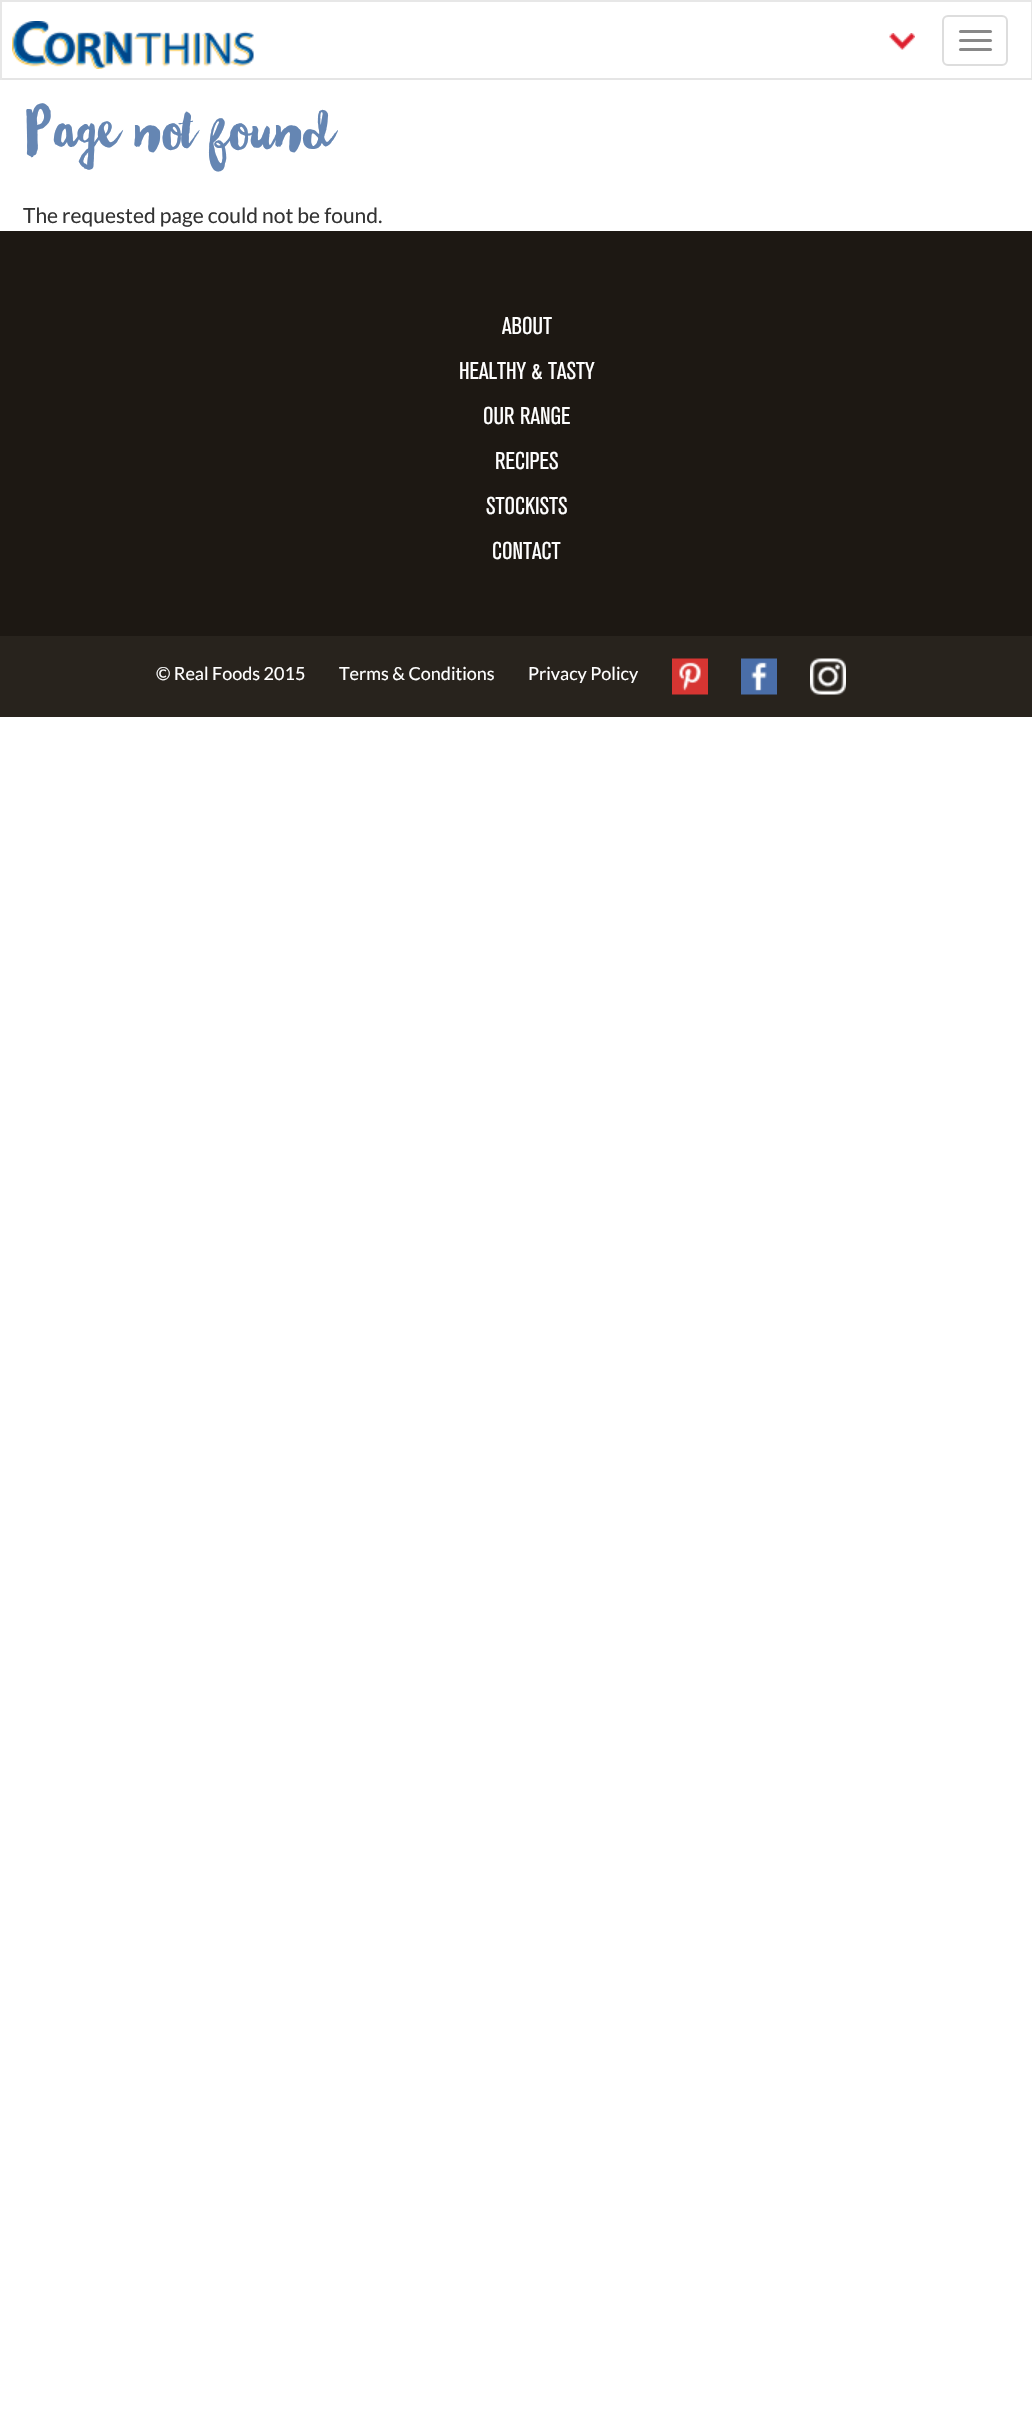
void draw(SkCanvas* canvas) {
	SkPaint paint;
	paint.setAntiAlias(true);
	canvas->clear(0xffffffff);
	paint.setColor(0xffe7e7e7);
	canvas->drawRect(SkRect::MakeXYWH(0, 0, 1032, 2), paint);
	canvas->drawRect(SkRect::MakeXYWH(1031, 0, 1, 80), paint);
	paint.setColor(0xffe5e5e5);
	canvas->drawRect(SkRect::MakeXYWH(0, 78, 1032, 2), paint);
	paint.setColor(0xffe7e7e7);
	canvas->drawRect(SkRect::MakeXYWH(0, 0, 2, 80), paint);
	canvas->drawImageRect(SkImages::DeferredFromEncodedData(SkData::MakeFromFileName("img1.png")), SkRect::MakeXYWH(12, 21, 242, 48), SkSamplingOptions());
	canvas->drawImageRect(SkImages::DeferredFromEncodedData(SkData::MakeFromFileName("img2.png")), SkRect::MakeXYWH(889, 33, 26, 17), SkSamplingOptions());
	paint.setStroke(true);
	paint.setStrokeWidth(2);
	paint.setColor(0xffdddddd);
	canvas->drawRoundRect(SkRect::MakeXYWH(943, 16, 64, 49), 5, 5, paint);
	paint.setStroke(false);
	paint.setColor(0xff888888);
	canvas->drawRoundRect(SkRect::MakeXYWH(959, 30, 33, 3), 1.5, 1.5, paint);
	canvas->drawRoundRect(SkRect::MakeXYWH(959, 39, 33, 3), 1.5, 1.5, paint);
	canvas->drawRoundRect(SkRect::MakeXYWH(959, 48, 33, 3), 1.5, 1.5, paint);
	SkFont f1(fontMgr->matchFamilyStyle("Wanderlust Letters", SkFontStyle::Normal()), 67.5);
	f1.setSubpixel(true);
	paint.setColor(0xff6586b3);
	canvas->drawString("Page not found", 23, 150, f1, paint);
	SkFont f2(fontMgr->matchFamilyStyle("Lato", SkFontStyle::Normal()), 21);
	f2.setSubpixel(true);
	paint.setColor(0xff333333);
	canvas->drawString("The requested page could not be found.", 23, 223, f2, paint);
	paint.setColor(0xff1d1813);
	canvas->drawRect(SkRect::MakeXYWH(0, 231, 1032, 405), paint);
	SkFont f3(fontMgr->matchFamilyStyle("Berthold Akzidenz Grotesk", SkFontStyle::Normal()), 24);
	f3.setSubpixel(true);
	paint.setColor(0xffffffff);
	canvas->drawString("ABOUT", 502, 334, f3, paint);
	canvas->drawString("HEALTHY & TASTY", 459, 379, f3, paint);
	canvas->drawString("OUR RANGE", 483, 424, f3, paint);
	canvas->drawString("RECIPES", 495, 469, f3, paint);
	canvas->drawString("STOCKISTS", 486, 514, f3, paint);
	canvas->drawString("CONTACT", 492, 559, f3, paint);
	paint.setColor(0xff28231d);
	canvas->drawRect(SkRect::MakeXYWH(0, 636, 1032, 81), paint);
	SkFont f4(fontMgr->matchFamilyStyle("Lato", SkFontStyle::Normal()), 18);
	f4.setSubpixel(true);
	paint.setColor(0xffffffff);
	canvas->drawString("© Real Foods 2015", 156, 680, f4, paint);
	canvas->drawString("Terms & Conditions", 339, 680, f4, paint);
	canvas->drawString("Privacy Policy", 528, 680, f4, paint);
	canvas->drawImageRect(SkImages::DeferredFromEncodedData(SkData::MakeFromFileName("img3.png")), SkRect::MakeXYWH(672, 658, 36, 37), SkSamplingOptions());
	canvas->drawImageRect(SkImages::DeferredFromEncodedData(SkData::MakeFromFileName("img4.png")), SkRect::MakeXYWH(741, 658, 36, 37), SkSamplingOptions());
	canvas->drawImageRect(SkImages::DeferredFromEncodedData(SkData::MakeFromFileName("img5.png")), SkRect::MakeXYWH(810, 658, 36, 37), SkSamplingOptions());
}
